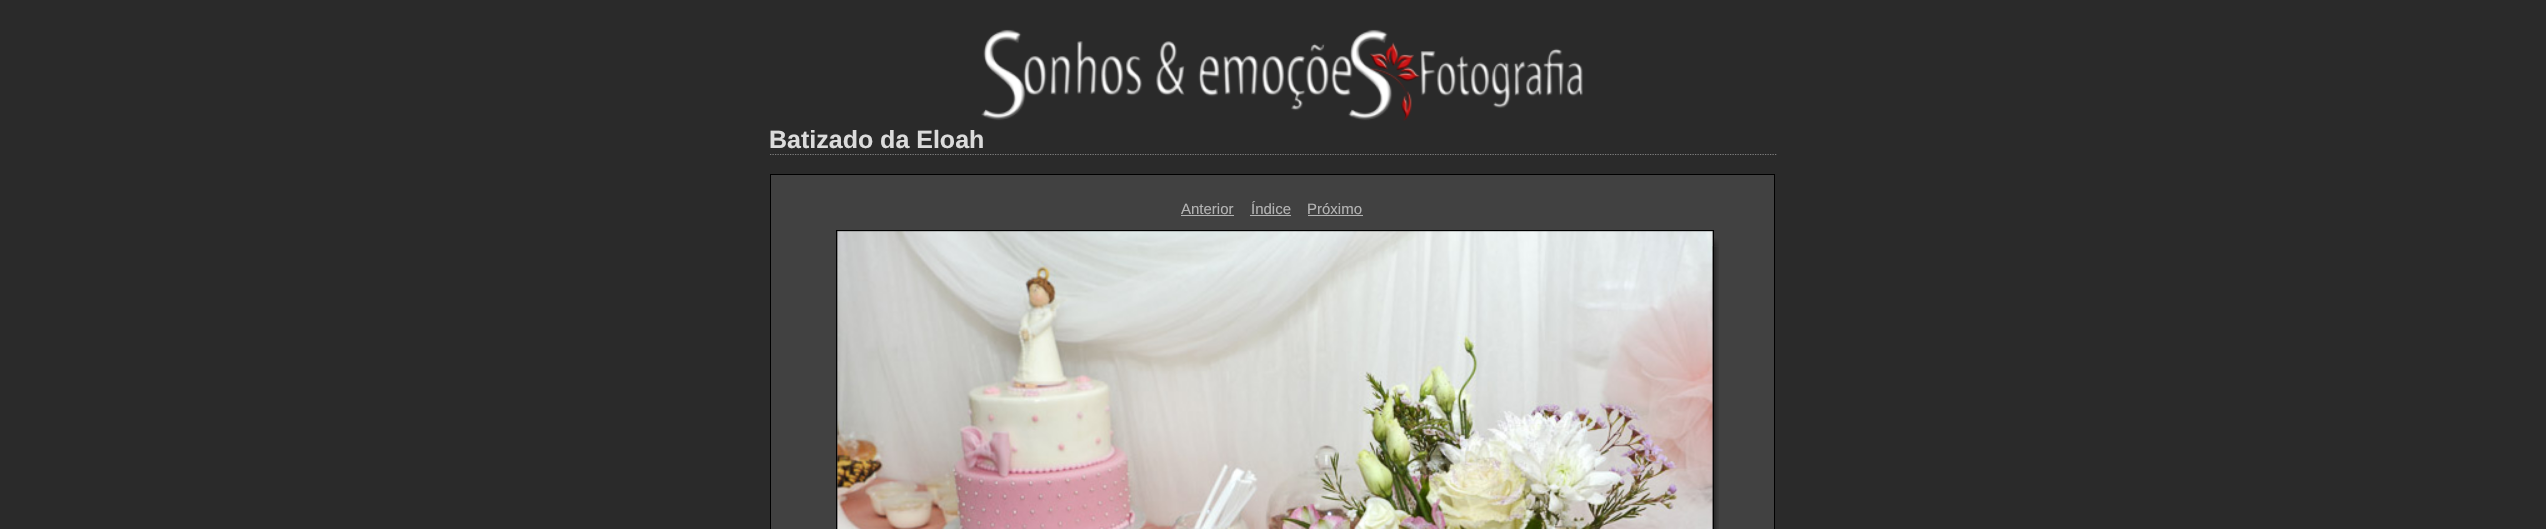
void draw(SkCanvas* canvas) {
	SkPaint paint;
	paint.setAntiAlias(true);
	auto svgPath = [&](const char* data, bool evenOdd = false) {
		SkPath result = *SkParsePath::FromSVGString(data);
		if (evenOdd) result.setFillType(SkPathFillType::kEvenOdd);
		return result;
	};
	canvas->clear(0xff2a2a2a);
	canvas->drawImageRect(SkImages::DeferredFromEncodedData(SkData::MakeFromFileName("img1.png")), SkRect::MakeXYWH(981, 29, 602, 92), SkSamplingOptions());
	paint.setStroke(true);
	paint.setStrokeWidth(1.2);
	paint.setColor(0xff7f7f7f);
	paint.setPathEffect(SkDashPathEffect::Make({{1.25f, 1.25f}}, 0));
	canvas->drawPath(svgPath("M770 154.5H1777.5"), paint);
	paint.setPathEffect(nullptr);
	SkFont f1(fontMgr->matchFamilyStyle("Liberation Sans", SkFontStyle::Bold()), 25);
	f1.setSubpixel(true);
	paint.setStroke(false);
	paint.setColor(0xffdbdbdb);
	canvas->drawString("Batizado da Eloah", 769, 148, f1, paint);
	paint.setColor(0xff414141);
	canvas->drawRect(SkRect::MakeXYWH(770.5, 174.5, 1004, 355), paint);
	paint.setStroke(true);
	paint.setStrokeWidth(1);
	paint.setColor(0xff000000);
	canvas->drawRect(SkRect::MakeXYWH(770.5, 174.5, 1004, 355), paint);
	SkFont f2(fontMgr->matchFamilyStyle("Liberation Sans", SkFontStyle::Normal()), 15);
	f2.setSubpixel(true);
	paint.setStroke(false);
	paint.setColor(0xffb3b3b3);
	canvas->drawString("Anterior", 1181, 214, f2, paint);
	canvas->drawRect(SkRect::MakeXYWH(1181, 215, 53, 1), paint);
	canvas->drawString("Índice", 1251, 214, f2, paint);
	canvas->drawRect(SkRect::MakeXYWH(1250, 215, 41, 1), paint);
	canvas->drawString("Próximo", 1307, 214, f2, paint);
	canvas->drawRect(SkRect::MakeXYWH(1308, 215, 55, 1), paint);
	canvas->drawImageRect(SkImages::DeferredFromEncodedData(SkData::MakeFromFileName("img2.png")), SkRect::MakeXYWH(1712, 246, 7, 283), SkSamplingOptions());
	paint.setStroke(true);
	paint.setColor(0xff000000);
	canvas->drawRect(SkRect::MakeXYWH(836.5, 230.5, 877, 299), paint);
	canvas->drawImageRect(SkImages::DeferredFromEncodedData(SkData::MakeFromFileName("img3.png")), SkRect::MakeXYWH(837, 231, 876, 298), SkSamplingOptions());
	canvas->drawImageRect(SkImages::DeferredFromEncodedData(SkData::MakeFromFileName("img4.png")), SkRect::MakeXYWH(1714, 238, 5, 8), SkSamplingOptions());
}
